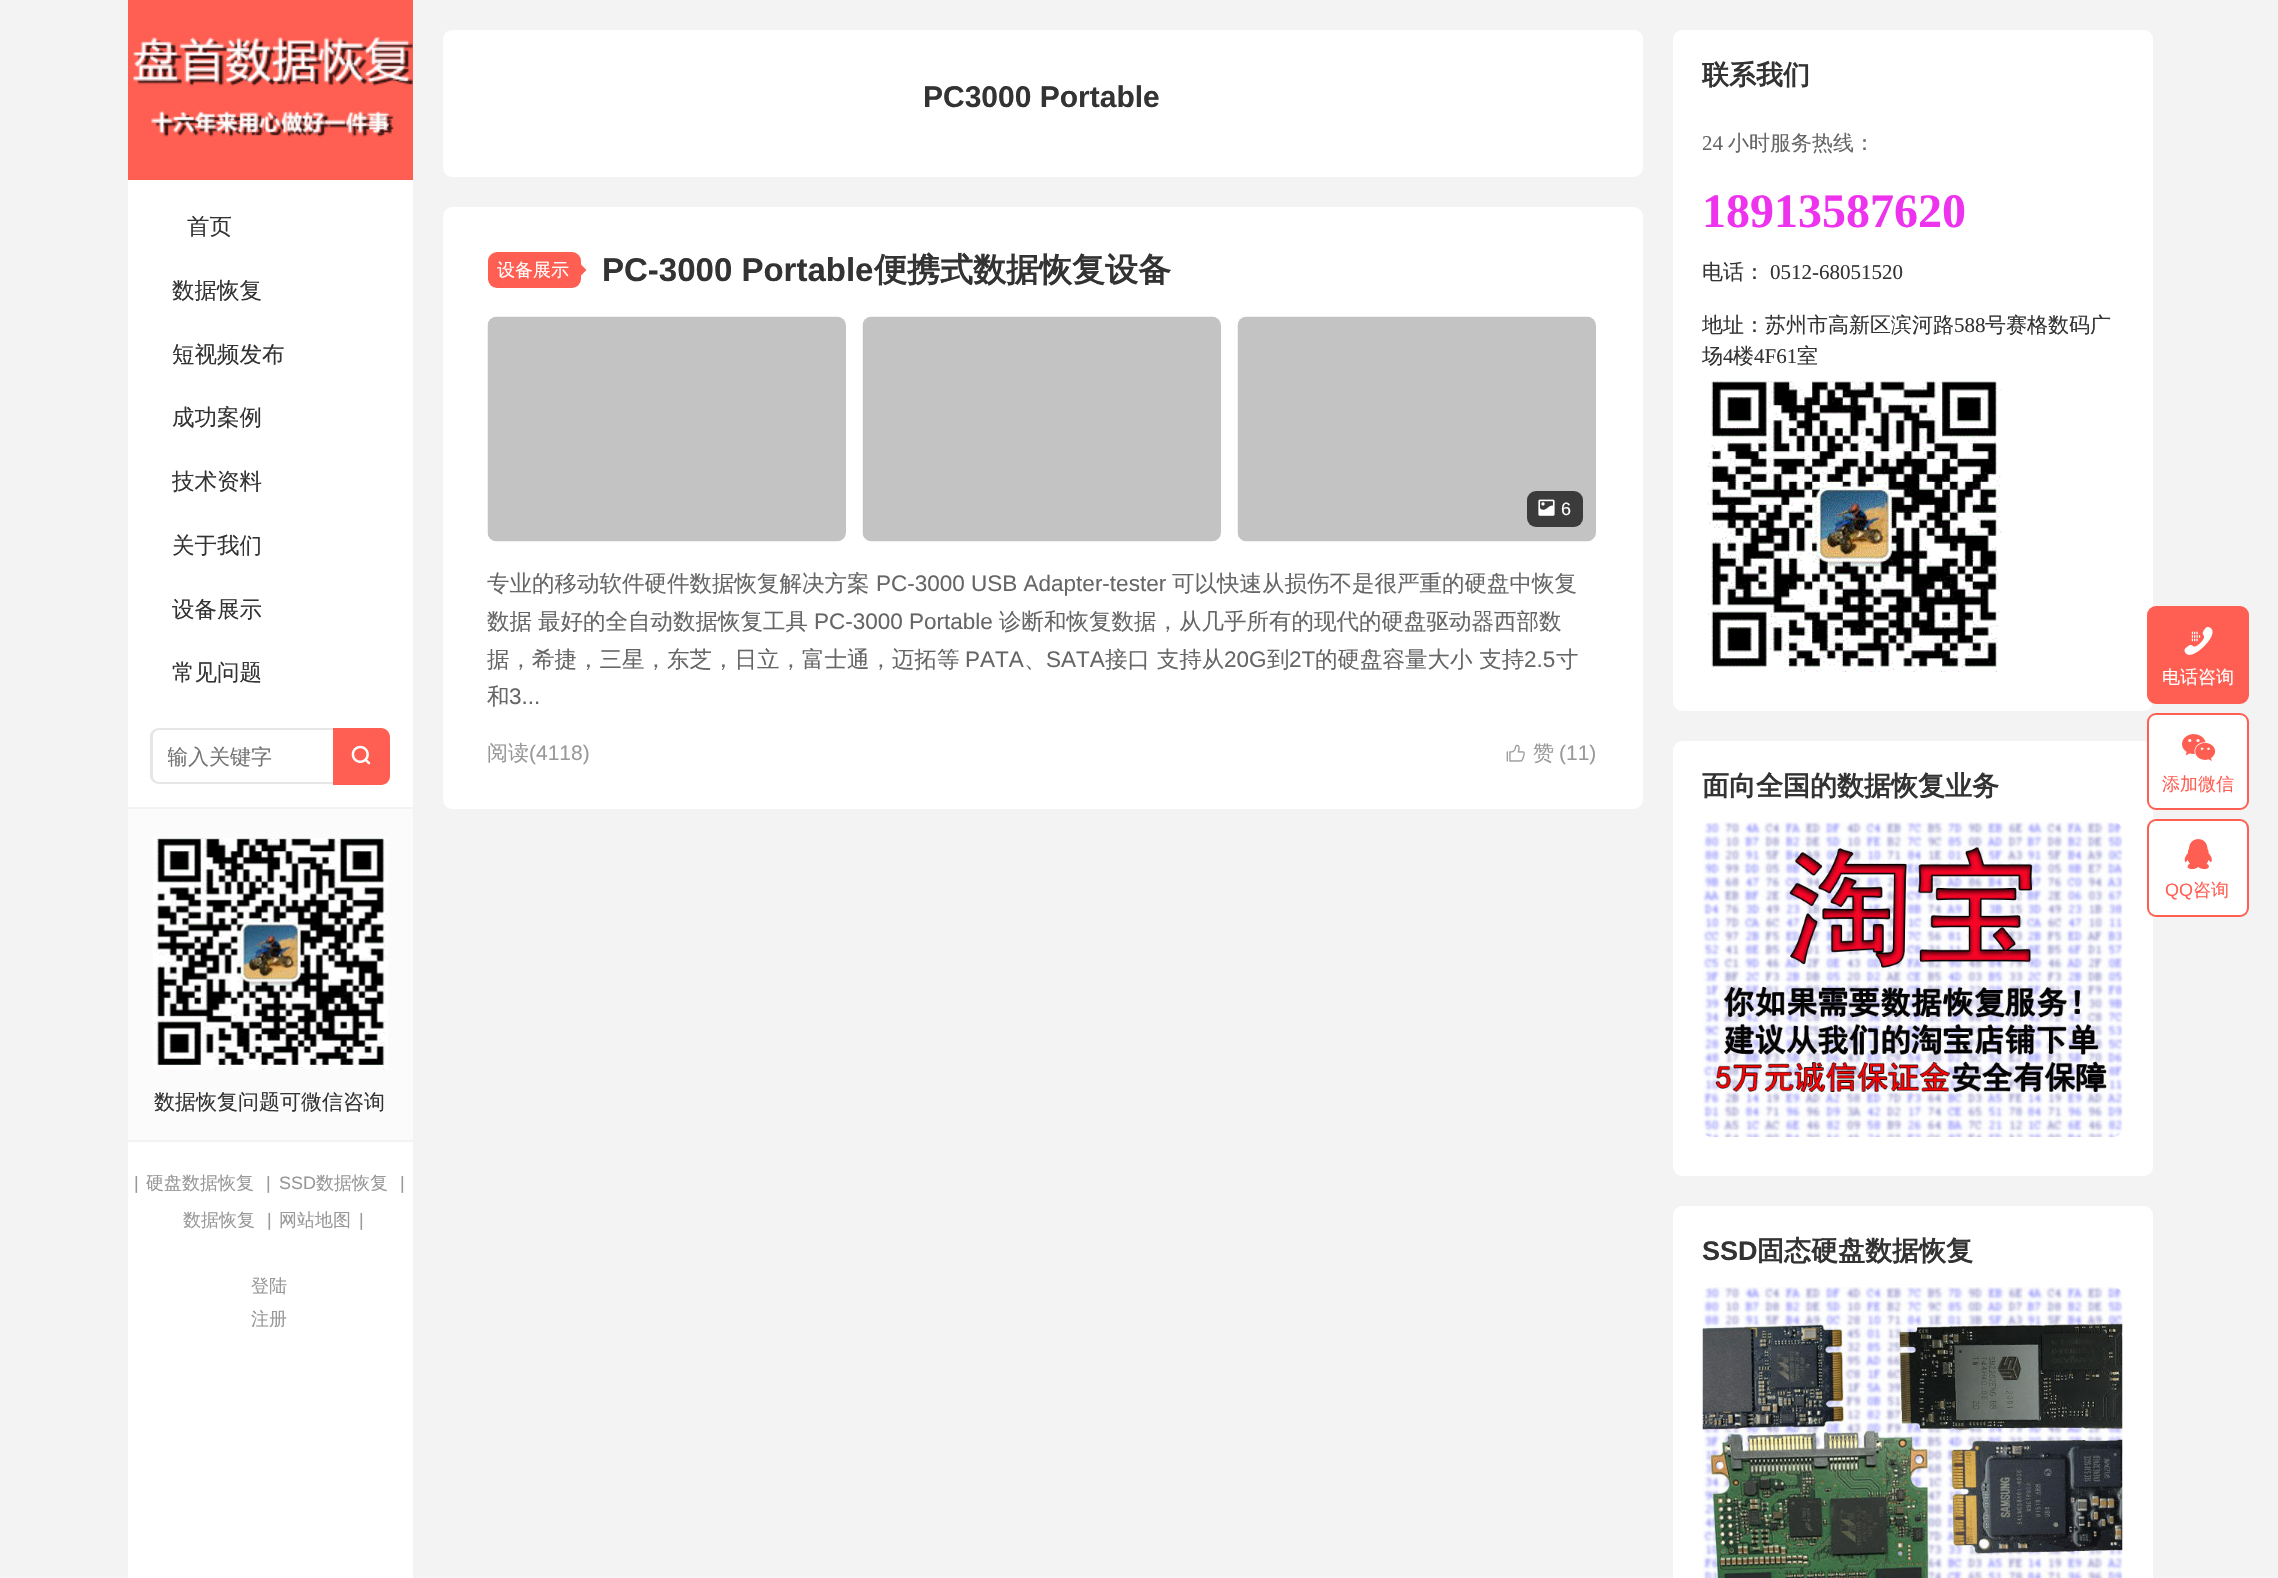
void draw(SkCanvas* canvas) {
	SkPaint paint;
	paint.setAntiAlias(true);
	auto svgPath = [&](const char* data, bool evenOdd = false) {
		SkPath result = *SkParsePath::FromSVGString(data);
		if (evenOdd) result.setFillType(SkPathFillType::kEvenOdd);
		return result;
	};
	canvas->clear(0xfff3f3f3);
	paint.setColor(0xffffffff);
	canvas->drawRect(SkRect::MakeXYWH(128, 180, 285, 1398), paint);
	paint.setColor(0xffff5e52);
	canvas->drawRect(SkRect::MakeXYWH(128, 0, 285, 180), paint);
	canvas->drawImageRect(SkImages::DeferredFromEncodedData(SkData::MakeFromFileName("img1.png")), SkRect::MakeXYWH(133, 37, 280, 100), SkSamplingOptions());
	SkFont f1(fontMgr->matchFamilyStyle("WenQuanYi Zen Hei", SkFontStyle(500, SkFontStyle::kNormal_Width, SkFontStyle::kUpright_Slant)), 22.5);
	f1.setSubpixel(true);
	paint.setColor(0xff333333);
	canvas->drawString("首页", 187, 234, f1, paint);
	canvas->drawString("数据恢复", 172, 298, f1, paint);
	canvas->drawString("短视频发布", 172, 362, f1, paint);
	canvas->drawString("成功案例", 172, 425, f1, paint);
	canvas->drawString("技术资料", 172, 489, f1, paint);
	canvas->drawString("关于我们", 172, 553, f1, paint);
	canvas->drawString("设备展示", 172, 617, f1, paint);
	canvas->drawString("常见问题", 172, 680, f1, paint);
	paint.setColor(0xffe6e6e6);
	canvas->drawPath(svgPath("M159 728H333V784H159C154 784 150 780 150 776V736C150 732 154 728 159 728ZM159 730H333V782H159C156 782 153 779 153 776V736C153 733 156 730 159 730Z", true), paint);
	canvas->save();
	canvas->clipRect(SkRect::MakeXYWH(168, 744, 150, 27));
	SkFont f2(fontMgr->matchFamilyStyle("WenQuanYi Zen Hei", SkFontStyle(500, SkFontStyle::kNormal_Width, SkFontStyle::kUpright_Slant)), 21);
	f2.setSubpixel(true);
	paint.setColor(0xff757575);
	canvas->drawString("输入关键字", 167, 764, f2, paint);
	canvas->restore();
	paint.setColor(0xffff5e52);
	canvas->drawPath(svgPath("M333 728H381C386 728 390 732 390 737V776C390 781 386 785 381 785H333Z"), paint);
	canvas->drawImageRect(SkImages::DeferredFromEncodedData(SkData::MakeFromFileName("img2.png")), SkRect::MakeXYWH(351, 745, 20, 20), SkSamplingOptions());
	paint.setColor(0xfffbfbfb);
	canvas->drawRect(SkRect::MakeXYWH(128, 809, 285, 331), paint);
	paint.setColor(0xfff3f3f3);
	canvas->drawRect(SkRect::MakeXYWH(128, 807, 285, 2), paint);
	canvas->drawRect(SkRect::MakeXYWH(128, 1140, 285, 2), paint);
	canvas->drawImageRect(SkImages::DeferredFromEncodedData(SkData::MakeFromFileName("img3.png")), SkRect::MakeXYWH(153, 838, 235, 232), SkSamplingOptions());
	paint.setColor(0xff333333);
	canvas->drawString("数据恢复问题可微信咨询", 154, 1109, f2, paint);
	SkFont f3(fontMgr->matchFamilyStyle("Liberation Sans", SkFontStyle::Normal()), 18);
	f3.setSubpixel(true);
	paint.setColor(0xff999999);
	canvas->drawString("|", 134, 1189, f3, paint);
	SkFont f4(fontMgr->matchFamilyStyle("WenQuanYi Zen Hei", SkFontStyle(500, SkFontStyle::kNormal_Width, SkFontStyle::kUpright_Slant)), 18);
	f4.setSubpixel(true);
	canvas->drawString("硬盘数据恢复", 146, 1189, f4, paint);
	canvas->drawString("|", 266, 1189, f3, paint);
	canvas->drawString("SSD", 279, 1189, f3, paint);
	canvas->drawString("数据恢复", 316, 1189, f4, paint);
	canvas->drawString("|", 400, 1189, f3, paint);
	canvas->drawString("数据恢复", 183, 1226, f4, paint);
	canvas->drawString("|", 267, 1226, f3, paint);
	canvas->drawString("网站地图", 279, 1226, f4, paint);
	canvas->drawString("|", 359, 1226, f3, paint);
	canvas->drawString("登陆", 251, 1292, f4, paint);
	canvas->drawString("注册", 251, 1325, f4, paint);
	paint.setColor(0xffffffff);
	canvas->drawRoundRect(SkRect::MakeXYWH(443, 30, 1200, 147), 9, 9, paint);
	SkFont f5(fontMgr->matchFamilyStyle("Liberation Sans", SkFontStyle::Bold()), 30);
	f5.setSubpixel(true);
	paint.setColor(0xff333333);
	canvas->drawString("PC3000 Portable", 923, 107, f5, paint);
	paint.setColor(0xffffffff);
	canvas->drawRoundRect(SkRect::MakeXYWH(443, 207, 1200, 602), 9, 9, paint);
	paint.setColor(0xffff5e52);
	canvas->drawRoundRect(SkRect::MakeXYWH(488, 252, 93, 36), 9, 9, paint);
	paint.setColor(0xffffffff);
	canvas->drawString("设备展示", 497, 276, f4, paint);
	paint.setColor(0xffff5e52);
	canvas->drawPath(svgPath("M580.5 276V264L586.5 270Z"), paint);
	SkFont f6(fontMgr->matchFamilyStyle("Liberation Sans", SkFontStyle::Bold()), 33);
	f6.setSubpixel(true);
	paint.setColor(0xff333333);
	canvas->drawString("PC-3000 Portable", 602, 281, f6, paint);
	SkFont f7(fontMgr->matchFamilyStyle("WenQuanYi Zen Hei", SkFontStyle::Bold()), 33);
	f7.setSubpixel(true);
	canvas->drawString("便携式数据恢复设备", 874, 281, f7, paint);
	canvas->drawImageRect(SkImages::DeferredFromEncodedData(SkData::MakeFromFileName("img4.png")), SkRect::MakeXYWH(487, 316, 359, 226), SkSamplingOptions());
	canvas->drawImageRect(SkImages::DeferredFromEncodedData(SkData::MakeFromFileName("img4.png")), SkRect::MakeXYWH(862, 316, 359, 226), SkSamplingOptions());
	canvas->drawImageRect(SkImages::DeferredFromEncodedData(SkData::MakeFromFileName("img4.png")), SkRect::MakeXYWH(1237, 316, 359, 226), SkSamplingOptions());
	paint.setColor(0xff3b3b3b);
	canvas->drawRoundRect(SkRect::MakeXYWH(1527, 491, 56, 36), 9, 9, paint);
	canvas->drawImageRect(SkImages::DeferredFromEncodedData(SkData::MakeFromFileName("img5.png")), SkRect::MakeXYWH(1538, 499, 17, 17), SkSamplingOptions());
	paint.setColor(0xffffffff);
	canvas->drawString("6", 1561, 515, f3, paint);
	paint.setColor(0xff666666);
	canvas->drawString("专业的移动软件硬件数据恢复解决方案", 487, 591, f1, paint);
	SkFont f8(fontMgr->matchFamilyStyle("Liberation Sans", SkFontStyle::Normal()), 22.5);
	f8.setSubpixel(true);
	canvas->drawString("PC-3000 USB Adapter-tester", 876, 591, f8, paint);
	canvas->drawString("可以快速从损伤不是很严重的硬盘中恢复", 1172, 591, f1, paint);
	canvas->drawString("数据", 487, 629, f1, paint);
	canvas->drawString("最好的全自动数据恢复工具", 538, 629, f1, paint);
	canvas->drawString("PC-3000 Portable", 814, 629, f8, paint);
	canvas->drawString("诊断和恢复数据，从几乎所有的现代的硬盘驱动器西部数", 999, 629, f1, paint);
	canvas->drawString("据，希捷，三星，东芝，日立，富士通，迈拓等", 487, 667, f1, paint);
	canvas->drawString("PATA", 965, 667, f8, paint);
	canvas->drawString("、", 1024, 667, f1, paint);
	canvas->drawString("SATA", 1046, 667, f8, paint);
	canvas->drawString("接口 支持从", 1105, 667, f1, paint);
	canvas->drawString("20G", 1224, 667, f8, paint);
	canvas->drawString("到", 1267, 667, f1, paint);
	canvas->drawString("2T", 1289, 667, f8, paint);
	canvas->drawString("的硬盘容量大小 支持", 1315, 667, f1, paint);
	canvas->drawString("2.5", 1524, 667, f8, paint);
	canvas->drawString("寸", 1556, 667, f1, paint);
	canvas->drawString("和", 487, 704, f1, paint);
	canvas->drawString("3...", 509, 704, f8, paint);
	paint.setColor(0xff999999);
	canvas->drawString("阅读", 487, 760, f2, paint);
	SkFont f9(fontMgr->matchFamilyStyle("Liberation Sans", SkFontStyle::Normal()), 21);
	f9.setSubpixel(true);
	canvas->drawString("(4118)", 529, 760, f9, paint);
	canvas->drawImageRect(SkImages::DeferredFromEncodedData(SkData::MakeFromFileName("img6.png")), SkRect::MakeXYWH(1506, 744, 19, 18), SkSamplingOptions());
	canvas->drawString("赞", 1533, 760, f2, paint);
	canvas->drawString("(11)", 1559, 760, f9, paint);
	paint.setColor(0xffffffff);
	canvas->drawRoundRect(SkRect::MakeXYWH(1673, 30, 480, 681), 9, 9, paint);
	SkFont f10(fontMgr->matchFamilyStyle("WenQuanYi Zen Hei", SkFontStyle::Bold()), 27);
	f10.setSubpixel(true);
	paint.setColor(0xff333333);
	canvas->drawString("联系我们", 1702, 84, f10, paint);
	SkFont f11(fontMgr->matchFamilyStyle("Liberation Serif", SkFontStyle::Normal()), 21);
	f11.setSubpixel(true);
	paint.setColor(0xff666666);
	canvas->drawString("24", 1702, 150, f11, paint);
	canvas->drawString("小时服务热线：", 1728, 150, f2, paint);
	SkFont f12(fontMgr->matchFamilyStyle("Liberation Serif", SkFontStyle::Bold()), 48);
	f12.setSubpixel(true);
	paint.setColor(0xffee33ee);
	canvas->drawString("18913587620", 1702, 227, f12, paint);
	paint.setColor(0xff333333);
	canvas->drawString("电话：", 1702, 279, f2, paint);
	canvas->drawString("0512-68051520", 1770, 279, f11, paint);
	canvas->drawString("地址：苏州市高新区滨河路", 1702, 332, f2, paint);
	canvas->drawString("588", 1954, 332, f11, paint);
	canvas->drawString("号赛格数码广", 1985, 332, f2, paint);
	canvas->drawString("场", 1702, 363, f2, paint);
	canvas->drawString("4", 1723, 363, f11, paint);
	canvas->drawString("楼", 1733, 363, f2, paint);
	canvas->drawString("4F61", 1754, 363, f11, paint);
	canvas->drawString("室", 1797, 363, f2, paint);
	canvas->drawImageRect(SkImages::DeferredFromEncodedData(SkData::MakeFromFileName("img7.png")), SkRect::MakeXYWH(1707, 381, 295, 291), SkSamplingOptions());
	paint.setColor(0xffffffff);
	canvas->drawRoundRect(SkRect::MakeXYWH(1673, 741, 480, 435), 9, 9, paint);
	paint.setColor(0xff333333);
	canvas->drawString("面向全国的数据恢复业务", 1702, 795, f10, paint);
	canvas->drawImageRect(SkImages::DeferredFromEncodedData(SkData::MakeFromFileName("img8.png")), SkRect::MakeXYWH(1703, 822, 420, 315), SkSamplingOptions());
	paint.setColor(0xffffffff);
	canvas->drawRoundRect(SkRect::MakeXYWH(1673, 1206, 480, 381), 9, 9, paint);
	SkFont f13(fontMgr->matchFamilyStyle("Liberation Sans", SkFontStyle::Bold()), 27);
	f13.setSubpixel(true);
	paint.setColor(0xff333333);
	canvas->drawString("SSD", 1702, 1260, f13, paint);
	canvas->drawString("固态硬盘数据恢复", 1757, 1260, f10, paint);
	canvas->drawImageRect(SkImages::DeferredFromEncodedData(SkData::MakeFromFileName("img9.png")), SkRect::MakeXYWH(1702, 1287, 421, 291), SkSamplingOptions());
	paint.setColor(0xffff5e52);
	canvas->drawRoundRect(SkRect::MakeXYWH(2148, 607, 100, 96), 8, 8, paint);
	paint.setStroke(true);
	paint.setStrokeWidth(2);
	canvas->drawRoundRect(SkRect::MakeXYWH(2148, 607, 100, 96), 8, 8, paint);
	canvas->drawImageRect(SkImages::DeferredFromEncodedData(SkData::MakeFromFileName("img10.png")), SkRect::MakeXYWH(2184, 626, 29, 29), SkSamplingOptions());
	paint.setStroke(false);
	paint.setColor(0xffffffff);
	canvas->drawString("电话咨询", 2162, 683, f4, paint);
	canvas->drawRoundRect(SkRect::MakeXYWH(2148, 714, 100, 95), 8, 8, paint);
	paint.setStroke(true);
	paint.setColor(0xffff5e52);
	canvas->drawRoundRect(SkRect::MakeXYWH(2148, 714, 100, 95), 8, 8, paint);
	canvas->drawImageRect(SkImages::DeferredFromEncodedData(SkData::MakeFromFileName("img11.png")), SkRect::MakeXYWH(2182, 734, 34, 27), SkSamplingOptions());
	paint.setStroke(false);
	canvas->drawString("添加微信", 2162, 790, f4, paint);
	paint.setColor(0xffffffff);
	canvas->drawRoundRect(SkRect::MakeXYWH(2148, 820, 100, 96), 8, 8, paint);
	paint.setStroke(true);
	paint.setColor(0xffff5e52);
	canvas->drawRoundRect(SkRect::MakeXYWH(2148, 820, 100, 96), 8, 8, paint);
	canvas->drawImageRect(SkImages::DeferredFromEncodedData(SkData::MakeFromFileName("img12.png")), SkRect::MakeXYWH(2184, 839, 28, 31), SkSamplingOptions());
	paint.setStroke(false);
	canvas->drawString("QQ", 2165, 896, f3, paint);
	canvas->drawString("咨询", 2193, 896, f4, paint);
}
